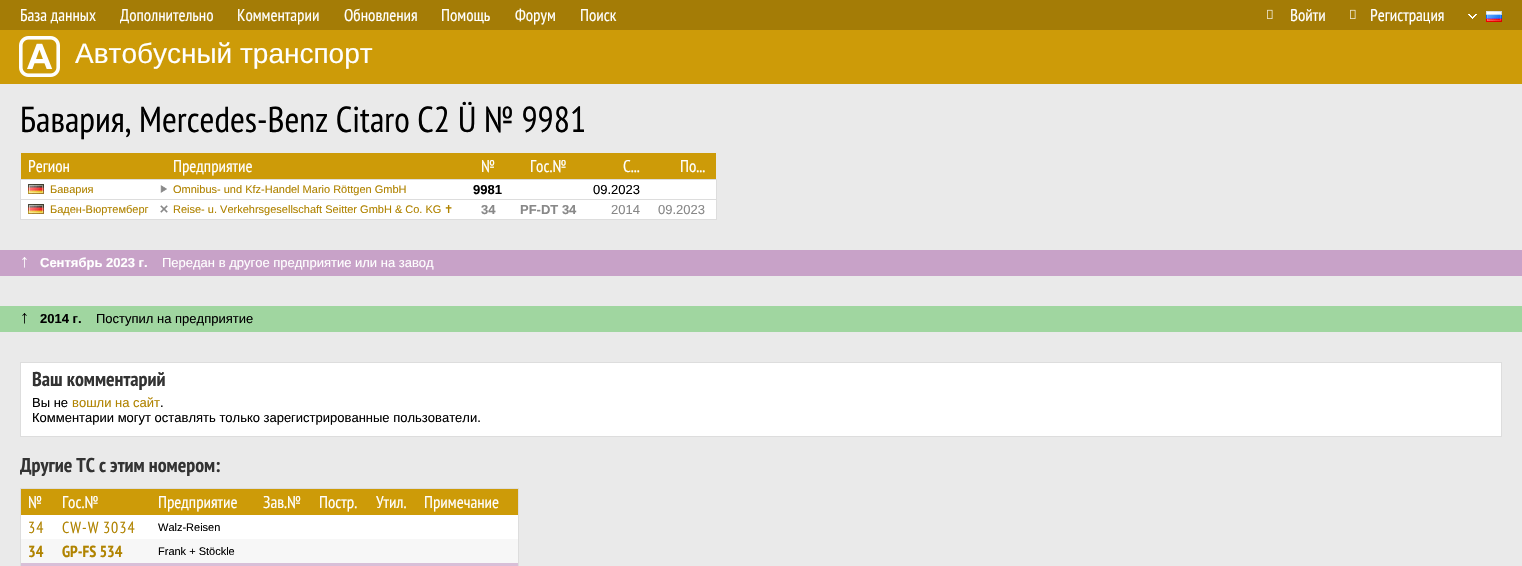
void draw(SkCanvas* canvas) {
	SkPaint paint;
	paint.setAntiAlias(true);
	auto spacedText = [&](const char* s, float x, float y, const SkFont& font, const SkPaint& ink, float letter, float word) {
		std::vector<SkGlyphID> glyphs(font.countText(s, strlen(s), SkTextEncoding::kUTF8));
		std::vector<float> xs(glyphs.size());
		font.textToGlyphs(s, strlen(s), SkTextEncoding::kUTF8, glyphs);
		font.getXPos(glyphs, xs, x);
		float extra = 0;
		for (size_t i = 0; i < glyphs.size(); i++) {
			xs[i] += extra;
			extra += letter + word * (glyphs[i] == font.unicharToGlyph(' '));
		}
		canvas->drawTextBlob(SkTextBlob::MakeFromPosHGlyphs(glyphs, xs, y, font), 0, 0, ink);
	};
	canvas->clear(0xffa47c06);
	SkFont f1(fontMgr->matchFamilyStyle("PT Sans Narrow", SkFontStyle::Normal()), 17);
	f1.setSubpixel(true);
	paint.setColor(0xffffffff);
	canvas->drawString("База данных", 20, 21, f1, paint);
	canvas->drawString("Дополнительно", 120, 21, f1, paint);
	canvas->drawString("Комментарии", 237, 21, f1, paint);
	canvas->drawString("Обновления", 344, 21, f1, paint);
	canvas->drawString("Помощь", 441, 21, f1, paint);
	canvas->drawString("Форум", 515, 21, f1, paint);
	canvas->drawString("Поиск", 580, 21, f1, paint);
	canvas->drawImageRect(SkImages::DeferredFromEncodedData(SkData::MakeFromFileName("img1.png")), SkRect::MakeXYWH(1267, 9, 6, 10), SkSamplingOptions());
	canvas->drawString("Войти", 1290, 21, f1, paint);
	canvas->drawImageRect(SkImages::DeferredFromEncodedData(SkData::MakeFromFileName("img1.png")), SkRect::MakeXYWH(1350, 9, 6, 10), SkSamplingOptions());
	canvas->drawString("Регистрация", 1370, 21, f1, paint);
	canvas->drawImageRect(SkImages::DeferredFromEncodedData(SkData::MakeFromFileName("img2.png")), SkRect::MakeXYWH(1468, 14, 9, 5), SkSamplingOptions());
	canvas->drawImageRect(SkImages::DeferredFromEncodedData(SkData::MakeFromFileName("img3.png")), SkRect::MakeXYWH(1486, 11, 16, 11), SkSamplingOptions());
	paint.setColor(0xffcd9b08);
	canvas->drawRect(SkRect::MakeXYWH(0, 30, 1522, 54), paint);
	canvas->drawImageRect(SkImages::DeferredFromEncodedData(SkData::MakeFromFileName("img4.png")), SkRect::MakeXYWH(19, 36, 41, 41), SkSamplingOptions());
	SkFont f2(fontMgr->matchFamilyStyle("Liberation Sans", SkFontStyle::Normal()), 28);
	f2.setSubpixel(true);
	paint.setColor(0xffffffff);
	canvas->drawString("Автобусный транспорт", 75, 63, f2, paint);
	paint.setColor(0xffeaeaea);
	canvas->drawRect(SkRect::MakeXYWH(0, 84, 1522, 482), paint);
	SkFont f3(fontMgr->matchFamilyStyle("PT Sans Narrow", SkFontStyle::Normal()), 36);
	f3.setSubpixel(true);
	paint.setColor(0xff000000);
	canvas->drawString("Бавария, Mercedes-Benz Citaro C2 Ü № 9981", 20, 132, f3, paint);
	paint.setColor(0xffcd9b08);
	canvas->drawRect(SkRect::MakeXYWH(21, 153, 695, 26), paint);
	paint.setColor(0xffffffff);
	canvas->drawString("Регион", 28, 172, f1, paint);
	canvas->drawString("Предприятие", 173, 172, f1, paint);
	canvas->drawString("№", 481, 172, f1, paint);
	canvas->drawString("Гос.№", 530, 172, f1, paint);
	canvas->drawString("С...", 623, 172, f1, paint);
	canvas->drawString("По...", 680, 172, f1, paint);
	canvas->drawRect(SkRect::MakeXYWH(21, 180, 695, 39), paint);
	paint.setColor(0xffdddddd);
	canvas->drawRect(SkRect::MakeXYWH(20, 179, 697, 1), paint);
	canvas->drawRect(SkRect::MakeXYWH(716, 179, 1, 41), paint);
	canvas->drawRect(SkRect::MakeXYWH(20, 219, 697, 1), paint);
	canvas->drawRect(SkRect::MakeXYWH(20, 179, 1, 41), paint);
	canvas->drawImageRect(SkImages::DeferredFromEncodedData(SkData::MakeFromFileName("img5.png")), SkRect::MakeXYWH(28, 184, 16, 10), SkSamplingOptions());
	SkFont f4(fontMgr->matchFamilyStyle("Liberation Sans", SkFontStyle::Normal()), 11);
	f4.setSubpixel(true);
	paint.setColor(0xffb08300);
	canvas->drawString("Бавария", 50, 193, f4, paint);
	canvas->drawImageRect(SkImages::DeferredFromEncodedData(SkData::MakeFromFileName("img6.png")), SkRect::MakeXYWH(160, 185, 7, 8), SkSamplingOptions());
	canvas->drawString("Omnibus- und Kfz-Handel Mario Röttgen GmbH", 173, 193, f4, paint);
	SkFont f5(fontMgr->matchFamilyStyle("Liberation Sans", SkFontStyle::Bold()), 13);
	f5.setSubpixel(true);
	paint.setColor(0xff000000);
	canvas->drawString("9981", 473, 194, f5, paint);
	SkFont f6(fontMgr->matchFamilyStyle("Liberation Sans", SkFontStyle::Normal()), 13);
	f6.setSubpixel(true);
	canvas->drawString("09.2023", 593, 194, f6, paint);
	paint.setColor(0xffdddddd);
	canvas->drawRect(SkRect::MakeXYWH(20, 199, 697, 1), paint);
	canvas->drawImageRect(SkImages::DeferredFromEncodedData(SkData::MakeFromFileName("img5.png")), SkRect::MakeXYWH(28, 204, 16, 10), SkSamplingOptions());
	paint.setColor(0xffb08300);
	canvas->drawString("Баден-Вюртемберг", 50, 213, f4, paint);
	canvas->drawImageRect(SkImages::DeferredFromEncodedData(SkData::MakeFromFileName("img7.png")), SkRect::MakeXYWH(160, 205, 8, 8), SkSamplingOptions());
	canvas->drawString("Reise- u. Verkehrsgesellschaft Seitter GmbH & Co. KG", 173, 213, f4, paint);
	SkFont f7(fontMgr->matchFamilyStyle("DejaVu Sans", SkFontStyle::Normal()), 11);
	f7.setSubpixel(true);
	canvas->drawString("✝", 444, 213, f7, paint);
	paint.setColor(0xff888888);
	canvas->drawString("34", 481, 214, f5, paint);
	canvas->drawString("PF-DT 34", 520, 214, f5, paint);
	canvas->drawString("2014", 611, 214, f6, paint);
	canvas->drawString("09.2023", 658, 214, f6, paint);
	paint.setColor(0xffc8a2c8);
	canvas->drawRect(SkRect::MakeXYWH(0, 250, 1522, 26), paint);
	SkFont f8(fontMgr->matchFamilyStyle("Liberation Sans", SkFontStyle::Normal()), 18);
	f8.setSubpixel(true);
	paint.setColor(0xffffffff);
	canvas->drawString("↑", 20, 267, f8, paint);
	canvas->drawString("Сентябрь 2023 г.", 40, 267, f5, paint);
	canvas->drawString("Передан в другое предприятие или на завод", 162, 267, f6, paint);
	paint.setColor(0xffa0d6a0);
	canvas->drawRect(SkRect::MakeXYWH(0, 306, 1522, 26), paint);
	paint.setColor(0xff000000);
	canvas->drawString("↑", 20, 323, f8, paint);
	canvas->drawString("2014 г.", 40, 323, f5, paint);
	canvas->drawString("Поступил на предприятие", 96, 323, f6, paint);
	paint.setColor(0xffffffff);
	canvas->drawRect(SkRect::MakeXYWH(20.5, 362.5, 1481, 74), paint);
	paint.setStroke(true);
	paint.setStrokeWidth(1);
	paint.setColor(0xffdddddd);
	canvas->drawRect(SkRect::MakeXYWH(20.5, 362.5, 1481, 74), paint);
	SkFont f9(fontMgr->matchFamilyStyle("PT Sans Narrow", SkFontStyle::Bold()), 20);
	f9.setSubpixel(true);
	paint.setStroke(false);
	paint.setColor(0xff333333);
	canvas->drawString("Ваш комментарий", 32, 386, f9, paint);
	paint.setColor(0xff000000);
	canvas->drawString("Вы не", 32, 407, f6, paint);
	paint.setColor(0xffb08300);
	canvas->drawString("вошли на сайт", 72, 407, f6, paint);
	paint.setColor(0xff000000);
	canvas->drawString(".", 160, 407, f6, paint);
	canvas->drawString("Комментарии могут оставлять только зарегистрированные пользователи.", 32, 422, f6, paint);
	paint.setColor(0xff333333);
	canvas->drawString("Другие ТС с этим номером:", 20, 472, f9, paint);
	paint.setColor(0xffffffff);
	canvas->drawRect(SkRect::MakeXYWH(21, 515, 497, 24), paint);
	paint.setStroke(true);
	paint.setColor(0xffdddddd);
	canvas->drawRect(SkRect::MakeXYWH(20.5, 488.5, 498, 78), paint);
	paint.setStroke(false);
	paint.setColor(0xffcd9b08);
	canvas->drawRect(SkRect::MakeXYWH(21, 489, 497, 26), paint);
	paint.setColor(0xffffffff);
	canvas->drawString("№", 28, 508, f1, paint);
	canvas->drawString("Гос.№", 62, 508, f1, paint);
	canvas->drawString("Предприятие", 158, 508, f1, paint);
	canvas->drawString("Зав.№", 263, 508, f1, paint);
	canvas->drawString("Постр.", 319, 508, f1, paint);
	canvas->drawString("Утил.", 376, 508, f1, paint);
	canvas->drawString("Примечание", 424, 508, f1, paint);
	SkFont f10(fontMgr->matchFamilyStyle("PT Sans Narrow", SkFontStyle::Normal()), 16);
	f10.setSubpixel(true);
	paint.setColor(0xffb08300);
	spacedText("34", 28, 533, f10, paint, 1, 0);
	spacedText("CW-W 3034", 62, 533, f10, paint, 1, -1);
	paint.setColor(0xff000000);
	canvas->drawString("Walz-Reisen", 158, 531, f4, paint);
	paint.setColor(0xfff7f7f7);
	canvas->drawRect(SkRect::MakeXYWH(21, 539, 497, 24), paint);
	SkFont f11(fontMgr->matchFamilyStyle("PT Sans Narrow", SkFontStyle::Bold()), 16);
	f11.setSubpixel(true);
	paint.setColor(0xffb08300);
	canvas->drawString("34", 28, 557, f11, paint);
	canvas->drawString("GP-FS 534", 62, 557, f11, paint);
	paint.setColor(0xff000000);
	canvas->drawString("Frank + Stöckle", 158, 555, f4, paint);
	paint.setColor(0xffd8bfd8);
	canvas->drawRect(SkRect::MakeXYWH(21, 563, 497, 3), paint);
}
